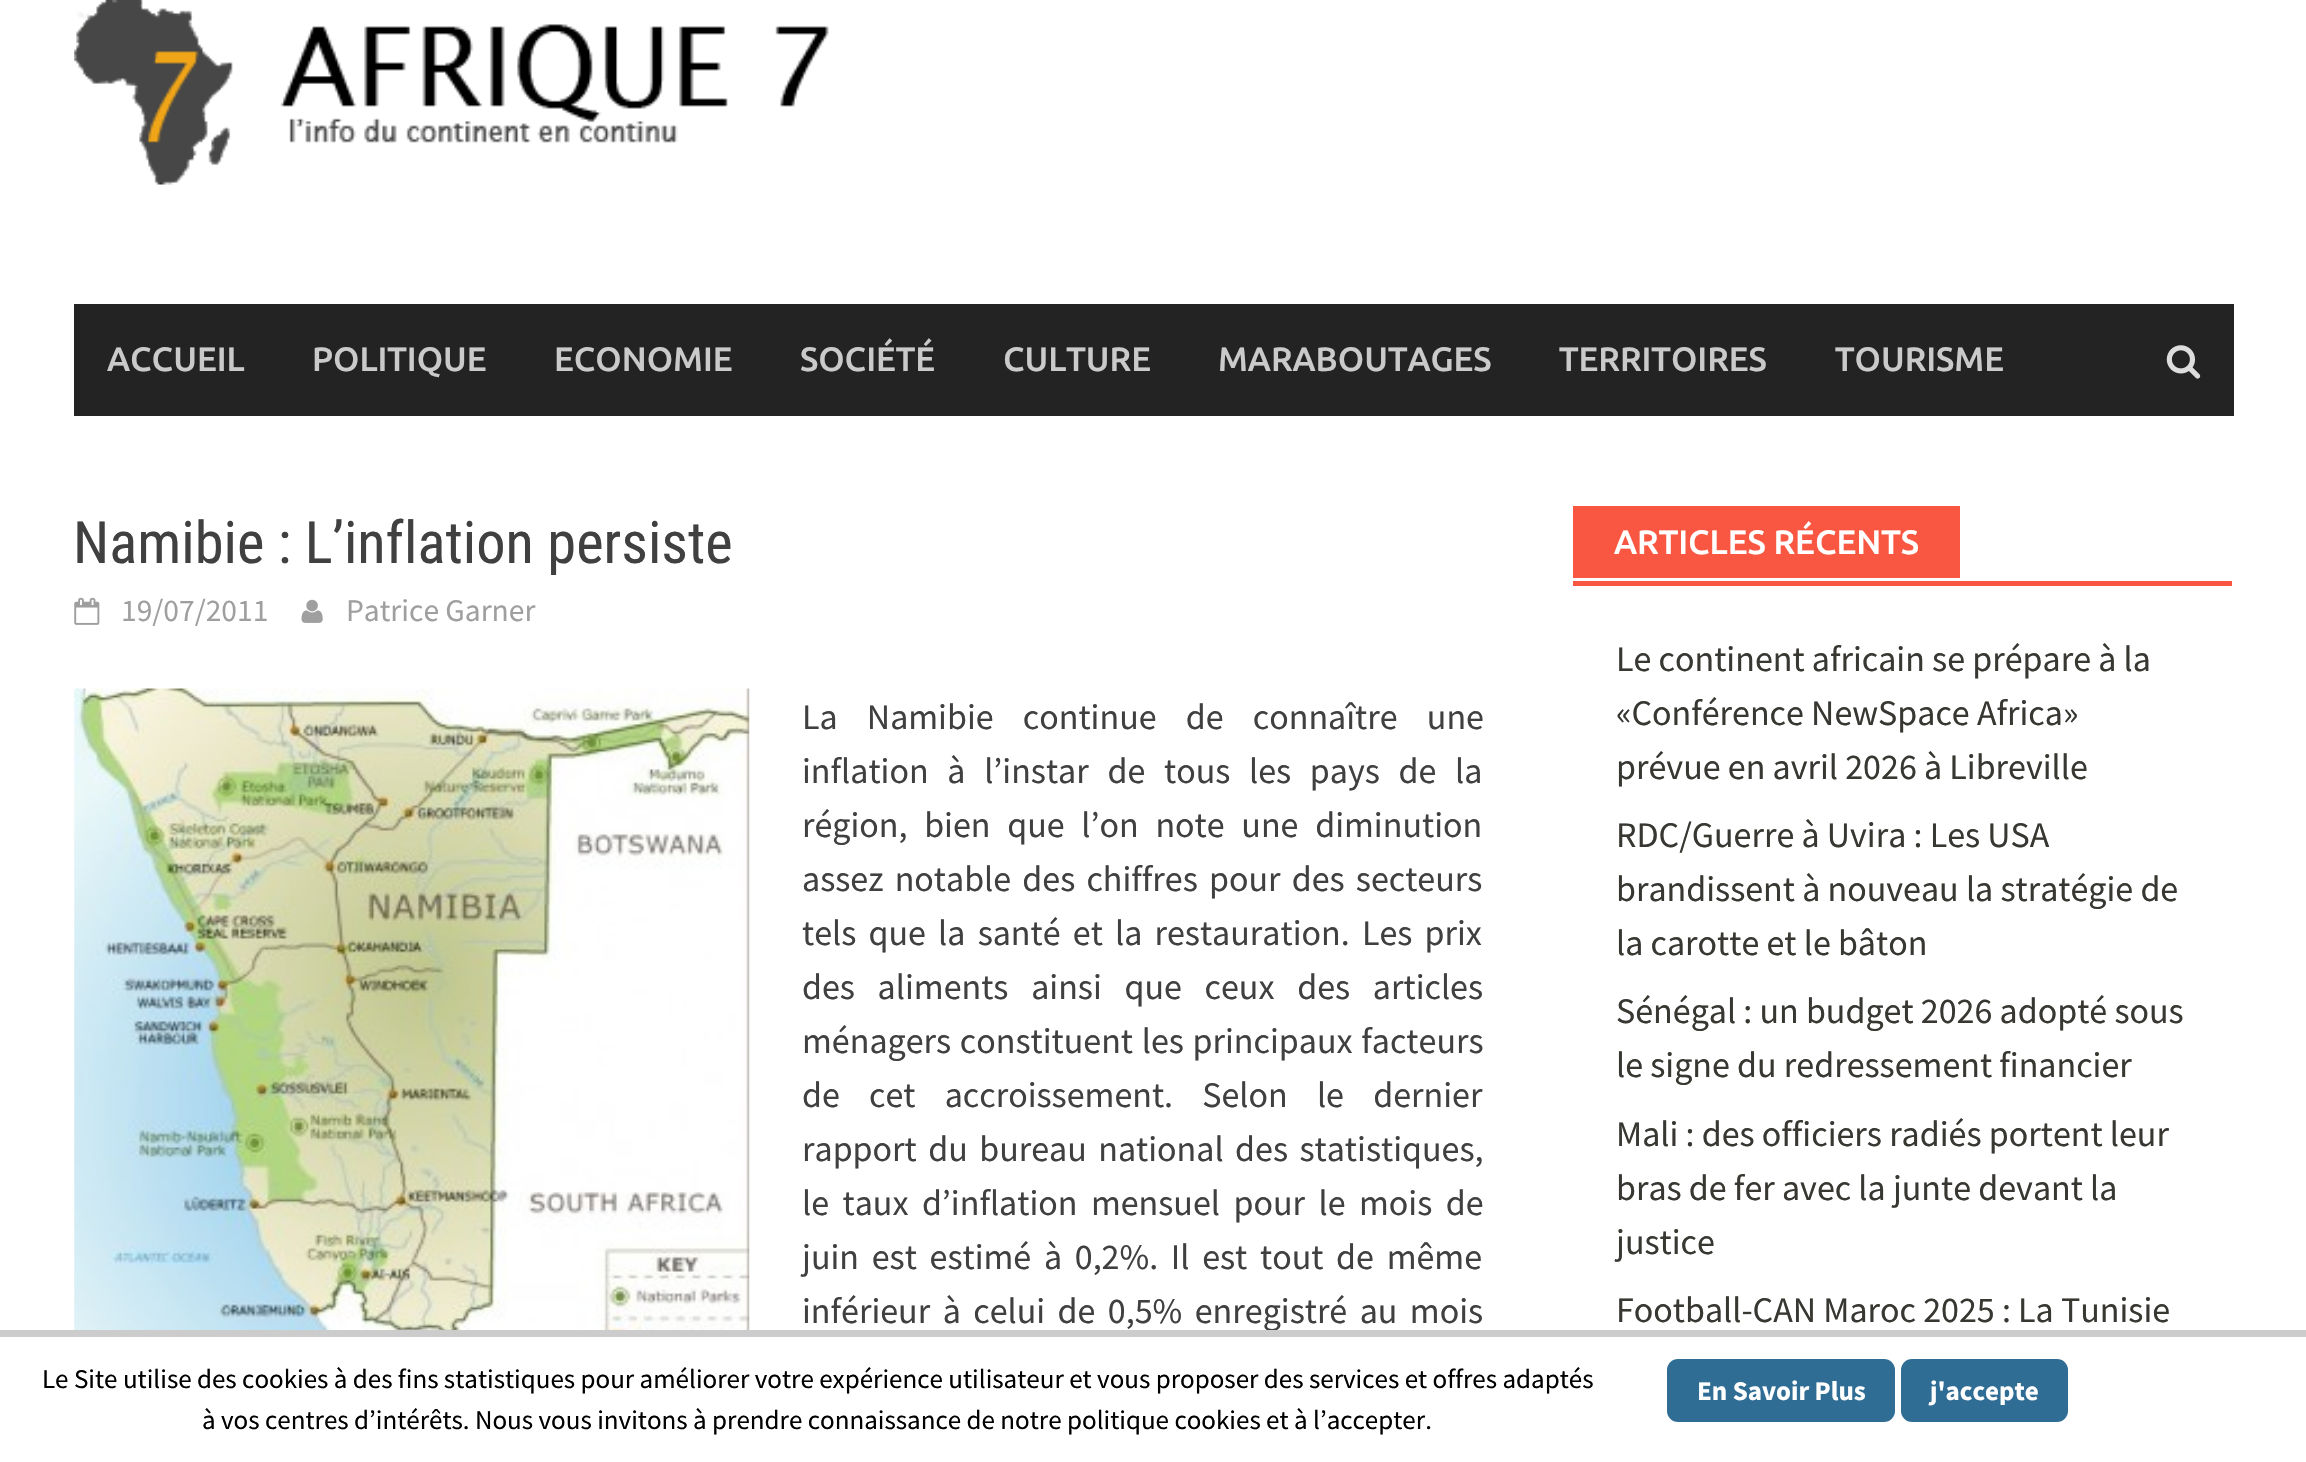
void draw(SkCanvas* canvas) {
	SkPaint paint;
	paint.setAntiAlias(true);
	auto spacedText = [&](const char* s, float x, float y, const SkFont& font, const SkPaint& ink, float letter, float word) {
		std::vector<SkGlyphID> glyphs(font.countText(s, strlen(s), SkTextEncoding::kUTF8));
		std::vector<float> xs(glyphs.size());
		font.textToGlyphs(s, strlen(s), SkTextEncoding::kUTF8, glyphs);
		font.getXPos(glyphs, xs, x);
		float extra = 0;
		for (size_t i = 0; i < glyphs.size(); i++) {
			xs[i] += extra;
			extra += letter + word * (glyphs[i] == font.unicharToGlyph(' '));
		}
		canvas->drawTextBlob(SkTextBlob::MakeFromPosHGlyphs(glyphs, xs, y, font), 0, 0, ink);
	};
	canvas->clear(0xffffffff);
	canvas->drawImageRect(SkImages::DeferredFromEncodedData(SkData::MakeFromFileName("img1.png")), SkRect::MakeXYWH(74, 0, 755, 185), SkSamplingOptions());
	paint.setColor(0xff232323);
	canvas->drawRect(SkRect::MakeXYWH(74, 304, 2160, 112), paint);
	SkFont f1(fontMgr->matchFamilyStyle("Ubuntu", SkFontStyle(500, SkFontStyle::kNormal_Width, SkFontStyle::kUpright_Slant)), 33.75);
	f1.setSubpixel(true);
	paint.setColor(0xffcacaca);
	canvas->drawString("ACCUEIL", 107, 371, f1, paint);
	canvas->drawString("POLITIQUE", 312, 371, f1, paint);
	canvas->drawString("ECONOMIE", 554, 371, f1, paint);
	canvas->drawString("SOCIÉTÉ", 800, 371, f1, paint);
	canvas->drawString("CULTURE", 1003, 371, f1, paint);
	canvas->drawString("MARABOUTAGES", 1218, 371, f1, paint);
	canvas->drawString("TERRITOIRES", 1559, 371, f1, paint);
	canvas->drawString("TOURISME", 1835, 371, f1, paint);
	canvas->drawImageRect(SkImages::DeferredFromEncodedData(SkData::MakeFromFileName("img2.png")), SkRect::MakeXYWH(2166, 345, 35, 34), SkSamplingOptions());
	SkFont f2(fontMgr->matchFamilyStyle("Roboto Condensed", SkFontStyle::Normal()), 58.5);
	f2.setSubpixel(true);
	paint.setColor(0xff404040);
	canvas->drawString("Namibie : L’inflation persiste", 73, 563, f2, paint);
	canvas->drawImageRect(SkImages::DeferredFromEncodedData(SkData::MakeFromFileName("img3.png")), SkRect::MakeXYWH(74, 597, 26, 28), SkSamplingOptions());
	SkFont f3(fontMgr->matchFamilyStyle("Source Sans Pro", SkFontStyle::Normal()), 31.5);
	f3.setSubpixel(true);
	paint.setColor(0xff9f9f9f);
	canvas->drawString("19/07/2011", 121, 621, f3, paint);
	canvas->drawImageRect(SkImages::DeferredFromEncodedData(SkData::MakeFromFileName("img4.png")), SkRect::MakeXYWH(301, 599, 22, 24), SkSamplingOptions());
	canvas->drawString("Patrice Garner", 346, 621, f3, paint);
	canvas->drawImageRect(SkImages::DeferredFromEncodedData(SkData::MakeFromFileName("img5.png")), SkRect::MakeXYWH(74, 688, 676, 642), SkSamplingOptions());
	SkFont f4(fontMgr->matchFamilyStyle("Source Sans Pro", SkFontStyle::Normal()), 36);
	f4.setSubpixel(true);
	paint.setColor(0xff404040);
	spacedText("La Namibie continue de connaître une", 802, 729, f4, paint, 0, 22);
	spacedText("inflation à l’instar de tous les pays de la", 802, 783, f4, paint, 0, 11.5);
	spacedText("région, bien que l’on note une diminution", 802, 837, f4, paint, 0, 9.5);
	spacedText("assez notable des chiffres pour des secteurs", 802, 891, f4, paint, 0, 4);
	spacedText("tels que la santé et la restauration. Les prix", 802, 945, f4, paint, 0, 5);
	spacedText("des aliments ainsi que ceux des articles", 802, 999, f4, paint, 0, 15.5);
	spacedText("ménagers constituent les principaux facteurs", 802, 1053, f4, paint, 0, 1.5);
	spacedText("de cet accroissement. Selon le dernier", 802, 1107, f4, paint, 0, 22);
	spacedText("rapport du bureau national des statistiques,", 802, 1161, f4, paint, 0, 4.25);
	spacedText("le taux d’inflation mensuel pour le mois de", 802, 1215, f4, paint, 0, 6.25);
	spacedText("juin est estimé à 0,2%. Il est tout de même", 802, 1269, f4, paint, 0, 5.5);
	spacedText("inférieur à celui de 0,5% enregistré au mois", 802, 1323, f4, paint, 0, 5.25);
	paint.setColor(0xfffa5742);
	canvas->drawRect(SkRect::MakeXYWH(1573, 581, 659, 5), paint);
	canvas->drawRect(SkRect::MakeXYWH(1573, 506, 387, 72), paint);
	paint.setColor(0xffffffff);
	canvas->drawString("ARTICLES RÉCENTS", 1614, 554, f1, paint);
	paint.setColor(0xff383732);
	canvas->drawString("Le continent africain se prépare à la", 1616, 671, f4, paint);
	canvas->drawString("«Conférence NewSpace Africa»", 1616, 725, f4, paint);
	canvas->drawString("prévue en avril 2026 à Libreville", 1616, 779, f4, paint);
	canvas->drawString("RDC/Guerre à Uvira : Les USA", 1616, 847, f4, paint);
	canvas->drawString("brandissent à nouveau la stratégie de", 1616, 901, f4, paint);
	canvas->drawString("la carotte et le bâton", 1616, 955, f4, paint);
	canvas->drawString("Sénégal : un budget 2026 adopté sous", 1616, 1023, f4, paint);
	canvas->drawString("le signe du redressement financier", 1616, 1077, f4, paint);
	canvas->drawString("Mali : des officiers radiés portent leur", 1616, 1146, f4, paint);
	canvas->drawString("bras de fer avec la junte devant la", 1616, 1200, f4, paint);
	canvas->drawString("justice", 1616, 1254, f4, paint);
	canvas->drawString("Football-CAN Maroc 2025 : La Tunisie", 1616, 1322, f4, paint);
	paint.setColor(0xffcccccc);
	canvas->drawRect(SkRect::MakeXYWH(0, 1330, 2306, 7), paint);
	SkFont f5(fontMgr->matchFamilyStyle("Source Sans Pro", SkFontStyle::Normal()), 27);
	f5.setSubpixel(true);
	paint.setColor(0xff000000);
	canvas->drawString("Le Site utilise des cookies à des fins statistiques pour améliorer votre expérience utilisateur et vous proposer des services et offres adaptés", 42, 1388, f5, paint);
	canvas->drawString("à vos centres d’intérêts. Nous vous invitons à prendre connaissance de notre politique cookies et à l’accepter.", 202, 1429, f5, paint);
	paint.setColor(0xff2f6d94);
	canvas->drawRoundRect(SkRect::MakeXYWH(1667, 1359, 228, 63), 11, 11, paint);
	SkFont f6(fontMgr->matchFamilyStyle("Source Sans Pro", SkFontStyle::Bold()), 27);
	f6.setSubpixel(true);
	paint.setColor(0xffffffff);
	canvas->drawString("En Savoir Plus", 1697, 1400, f6, paint);
	paint.setColor(0xff2f6d94);
	canvas->drawRoundRect(SkRect::MakeXYWH(1901, 1359, 167, 63), 11, 11, paint);
	paint.setColor(0xffffffff);
	canvas->drawString("j'accepte", 1930, 1400, f6, paint);
}
